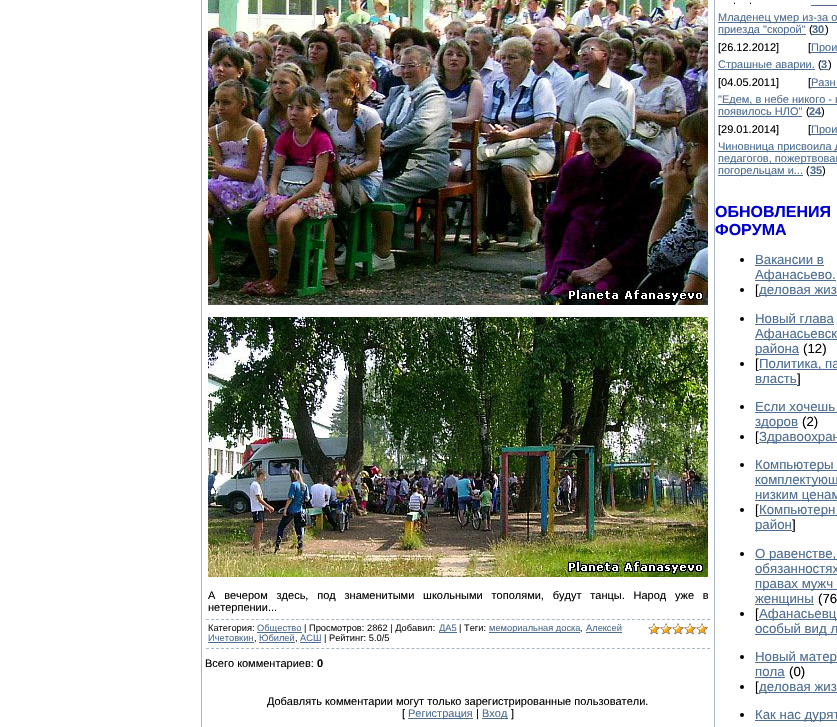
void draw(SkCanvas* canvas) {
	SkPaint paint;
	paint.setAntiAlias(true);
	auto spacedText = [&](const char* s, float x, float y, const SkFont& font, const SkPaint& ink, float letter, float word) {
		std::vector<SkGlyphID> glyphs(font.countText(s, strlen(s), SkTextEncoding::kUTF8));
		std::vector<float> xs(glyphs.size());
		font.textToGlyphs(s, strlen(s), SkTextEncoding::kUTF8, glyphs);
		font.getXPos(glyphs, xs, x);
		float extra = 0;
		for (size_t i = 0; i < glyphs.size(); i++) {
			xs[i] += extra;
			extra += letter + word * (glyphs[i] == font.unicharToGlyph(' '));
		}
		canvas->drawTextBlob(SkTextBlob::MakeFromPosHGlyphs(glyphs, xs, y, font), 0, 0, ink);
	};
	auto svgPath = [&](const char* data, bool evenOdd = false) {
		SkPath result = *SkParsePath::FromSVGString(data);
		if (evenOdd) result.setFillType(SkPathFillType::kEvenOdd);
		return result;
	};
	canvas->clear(0xffffffff);
	paint.setColor(0xffa9b8c2);
	canvas->drawRect(SkRect::MakeXYWH(714, 0, 1, 727), paint);
	canvas->drawRect(SkRect::MakeXYWH(201, 0, 1, 727), paint);
	canvas->drawImageRect(SkImages::DeferredFromEncodedData(SkData::MakeFromFileName("img1.png")), SkRect::MakeXYWH(208, 0, 500, 305), SkSamplingOptions());
	canvas->drawImageRect(SkImages::DeferredFromEncodedData(SkData::MakeFromFileName("img2.png")), SkRect::MakeXYWH(208, 317, 500, 260), SkSamplingOptions());
	SkFont f1(fontMgr->matchFamilyStyle("Liberation Sans", SkFontStyle::Normal()), 11);
	f1.setSubpixel(true);
	paint.setColor(0xff000000);
	spacedText("А вечером здесь, под знаменитыми школьными тополями, будут танцы. Народ уже в", 208, 599, f1, paint, 0, 5.75);
	canvas->drawString("нетерпении...", 208, 611, f1, paint);
	paint.setStroke(true);
	paint.setStrokeWidth(1);
	paint.setColor(0xffa9b8c2);
	paint.setPathEffect(SkDashPathEffect::Make({{3, 2.01f}}, 0));
	canvas->drawPath(svgPath("M206 619.5H710"), paint);
	paint.setPathEffect(nullptr);
	paint.setPathEffect(SkDashPathEffect::Make({{3, 2.01f}}, 0));
	canvas->drawPath(svgPath("M206 648.5H710"), paint);
	paint.setPathEffect(nullptr);
	SkFont f2(fontMgr->matchFamilyStyle("Liberation Sans", SkFontStyle::Normal()), 9.3);
	f2.setSubpixel(true);
	paint.setStroke(false);
	paint.setColor(0xff1a1a1a);
	canvas->drawString("Категория:", 208, 631, f2, paint);
	paint.setColor(0xff4d6d91);
	canvas->drawRect(SkRect::MakeXYWH(257, 632, 45, 1), paint);
	canvas->drawString("Общество", 257, 631, f2, paint);
	paint.setColor(0xff1a1a1a);
	canvas->drawString("| Просмотров: 2862 | Добавил:", 304, 631, f2, paint);
	paint.setColor(0xff4d6d91);
	canvas->drawRect(SkRect::MakeXYWH(439, 632, 18, 1), paint);
	canvas->drawString("ДА5", 439, 631, f2, paint);
	paint.setColor(0xff1a1a1a);
	canvas->drawString("| Теги:", 459, 631, f2, paint);
	paint.setColor(0xff4d6d91);
	canvas->drawRect(SkRect::MakeXYWH(489, 632, 91, 1), paint);
	canvas->drawString("мемориальная доска", 489, 631, f2, paint);
	paint.setColor(0xff1a1a1a);
	canvas->drawString(",", 580, 631, f2, paint);
	paint.setColor(0xff4d6d91);
	canvas->drawRect(SkRect::MakeXYWH(586, 632, 36, 1), paint);
	canvas->drawString("Алексей", 586, 631, f2, paint);
	canvas->drawImageRect(SkImages::DeferredFromEncodedData(SkData::MakeFromFileName("img3.png")), SkRect::MakeXYWH(648, 623, 60, 12), SkSamplingOptions());
	canvas->drawImageRect(SkImages::DeferredFromEncodedData(SkData::MakeFromFileName("img4.png")), SkRect::MakeXYWH(648, 623, 60, 12), SkSamplingOptions());
	canvas->drawString("Ичетовкин", 208, 641, f2, paint);
	paint.setColor(0xff1a1a1a);
	canvas->drawString(",", 254, 641, f2, paint);
	paint.setColor(0xff4d6d91);
	canvas->drawRect(SkRect::MakeXYWH(208, 642, 46, 1), paint);
	canvas->drawString("Юбилей", 259, 641, f2, paint);
	paint.setColor(0xff1a1a1a);
	canvas->drawString(",", 295, 641, f2, paint);
	paint.setColor(0xff4d6d91);
	canvas->drawRect(SkRect::MakeXYWH(259, 642, 36, 1), paint);
	canvas->drawRect(SkRect::MakeXYWH(300, 642, 21, 1), paint);
	canvas->drawString("АСШ", 300, 641, f2, paint);
	paint.setColor(0xff1a1a1a);
	canvas->drawString("| Рейтинг: 5.0/5", 324, 641, f2, paint);
	paint.setColor(0xff000000);
	canvas->drawString("Всего комментариев:", 205, 667, f1, paint);
	SkFont f3(fontMgr->matchFamilyStyle("Liberation Sans", SkFontStyle::Bold()), 11);
	f3.setSubpixel(true);
	canvas->drawString("0", 317, 667, f3, paint);
	canvas->drawString("Добавлять комментарии могут только зарегистрированные пользователи.", 267, 705, f1, paint);
	canvas->drawString("[", 402, 717, f1, paint);
	paint.setColor(0xff4d6d91);
	canvas->drawRect(SkRect::MakeXYWH(408, 718, 65, 1), paint);
	canvas->drawString("Регистрация", 408, 717, f1, paint);
	paint.setColor(0xff000000);
	canvas->drawString("|", 476, 717, f1, paint);
	paint.setColor(0xff4d6d91);
	canvas->drawRect(SkRect::MakeXYWH(482, 718, 26, 1), paint);
	canvas->drawString("Вход", 482, 717, f1, paint);
	paint.setColor(0xff000000);
	canvas->drawString("]", 511, 717, f1, paint);
	canvas->drawString(".", 733, 4, f1, paint);
	canvas->drawString(".", 749, 4, f1, paint);
	paint.setColor(0xff4d6d91);
	canvas->drawRect(SkRect::MakeXYWH(811, 5, 26, 1), paint);
	canvas->drawRect(SkRect::MakeXYWH(718, 22, 119, 1), paint);
	canvas->drawString("Младенец умер из-за о", 718, 21, f1, paint);
	canvas->drawRect(SkRect::MakeXYWH(718, 34, 88, 1), paint);
	canvas->drawString("приезда \"скорой\"", 718, 33, f1, paint);
	paint.setColor(0xff000000);
	canvas->drawString("(", 809, 33, f1, paint);
	paint.setColor(0xff4d6d91);
	canvas->drawRect(SkRect::MakeXYWH(812, 34, 13, 1), paint);
	canvas->drawString("30", 812, 33, f3, paint);
	paint.setColor(0xff000000);
	canvas->drawString(")", 825, 33, f1, paint);
	canvas->drawString("[26.12.2012]", 718, 51, f1, paint);
	canvas->drawString("[", 808, 51, f1, paint);
	paint.setColor(0xff4d6d91);
	canvas->drawRect(SkRect::MakeXYWH(811, 52, 26, 1), paint);
	canvas->drawString("Прои", 811, 51, f1, paint);
	canvas->drawRect(SkRect::MakeXYWH(718, 69, 97, 1), paint);
	canvas->drawString("Страшные аварии.", 718, 68, f1, paint);
	paint.setColor(0xff000000);
	canvas->drawString("(", 818, 68, f1, paint);
	paint.setColor(0xff4d6d91);
	canvas->drawRect(SkRect::MakeXYWH(821, 69, 7, 1), paint);
	canvas->drawString("3", 821, 68, f3, paint);
	paint.setColor(0xff000000);
	canvas->drawString(")", 828, 68, f1, paint);
	canvas->drawString("[04.05.2011]", 718, 86, f1, paint);
	canvas->drawString("[", 808, 86, f1, paint);
	paint.setColor(0xff4d6d91);
	canvas->drawString("Разн", 811, 86, f1, paint);
	canvas->drawRect(SkRect::MakeXYWH(811, 87, 26, 1), paint);
	canvas->drawRect(SkRect::MakeXYWH(718, 104, 119, 1), paint);
	canvas->drawString("\"Едем, в небе никого - в", 718, 103, f1, paint);
	canvas->drawString("появилось НЛО\"", 718, 115, f1, paint);
	canvas->drawRect(SkRect::MakeXYWH(718, 116, 84, 1), paint);
	paint.setColor(0xff000000);
	canvas->drawString("(", 806, 115, f1, paint);
	paint.setColor(0xff4d6d91);
	canvas->drawRect(SkRect::MakeXYWH(809, 116, 12, 1), paint);
	canvas->drawString("24", 809, 115, f3, paint);
	paint.setColor(0xff000000);
	canvas->drawString(")", 821, 115, f1, paint);
	canvas->drawString("[29.01.2014]", 718, 133, f1, paint);
	canvas->drawString("[", 808, 133, f1, paint);
	paint.setColor(0xff4d6d91);
	canvas->drawRect(SkRect::MakeXYWH(811, 134, 26, 1), paint);
	canvas->drawString("Прои", 811, 133, f1, paint);
	canvas->drawRect(SkRect::MakeXYWH(718, 151, 119, 1), paint);
	canvas->drawString("Чиновница присвоила д", 718, 150, f1, paint);
	canvas->drawRect(SkRect::MakeXYWH(718, 163, 119, 1), paint);
	canvas->drawString("педагогов, пожертвован", 718, 162, f1, paint);
	canvas->drawRect(SkRect::MakeXYWH(718, 175, 85, 1), paint);
	canvas->drawString("погорельцам и...", 718, 174, f1, paint);
	paint.setColor(0xff000000);
	canvas->drawString("(", 806, 174, f1, paint);
	paint.setColor(0xff4d6d91);
	canvas->drawRect(SkRect::MakeXYWH(810, 175, 12, 1), paint);
	canvas->drawString("35", 810, 174, f3, paint);
	paint.setColor(0xff000000);
	canvas->drawString(")", 822, 174, f1, paint);
	SkFont f4(fontMgr->matchFamilyStyle("Liberation Sans", SkFontStyle::Bold()), 16);
	f4.setSubpixel(true);
	paint.setColor(0xff0000cd);
	canvas->drawString("ОБНОВЛЕНИЯ", 715, 217, f4, paint);
	canvas->drawString("ФОРУМА", 715, 235, f4, paint);
	paint.setColor(0xff000000);
	canvas->drawCircle(742, 260, 2, paint);
	SkFont f5(fontMgr->matchFamilyStyle("Liberation Sans", SkFontStyle::Normal()), 13.25);
	f5.setSubpixel(true);
	paint.setColor(0xff4d6d91);
	canvas->drawString("Вакансии в", 755, 264, f5, paint);
	canvas->drawRect(SkRect::MakeXYWH(755, 265, 69, 1), paint);
	canvas->drawRect(SkRect::MakeXYWH(755, 280, 81, 1), paint);
	canvas->drawString("Афанасьево.", 755, 279, f5, paint);
	paint.setColor(0xff000000);
	canvas->drawCircle(742, 290, 2, paint);
	canvas->drawString("[", 755, 294, f5, paint);
	paint.setColor(0xff4d6d91);
	canvas->drawRect(SkRect::MakeXYWH(759, 295, 78, 1), paint);
	canvas->drawString("деловая жиз", 759, 294, f5, paint);
	paint.setColor(0xff000000);
	canvas->drawCircle(742, 319, 2, paint);
	paint.setColor(0xff4d6d91);
	canvas->drawString("Новый глава", 755, 323, f5, paint);
	canvas->drawRect(SkRect::MakeXYWH(755, 324, 79, 1), paint);
	canvas->drawRect(SkRect::MakeXYWH(755, 339, 82, 1), paint);
	canvas->drawString("Афанасьевск", 755, 338, f5, paint);
	canvas->drawRect(SkRect::MakeXYWH(755, 354, 44, 1), paint);
	canvas->drawString("района", 755, 353, f5, paint);
	paint.setColor(0xff000000);
	canvas->drawString("(12)", 803, 353, f5, paint);
	canvas->drawCircle(742, 364, 2, paint);
	canvas->drawString("[", 755, 368, f5, paint);
	paint.setColor(0xff4d6d91);
	canvas->drawRect(SkRect::MakeXYWH(759, 369, 78, 1), paint);
	canvas->drawString("Политика, па", 759, 368, f5, paint);
	canvas->drawString("власть", 755, 383, f5, paint);
	canvas->drawRect(SkRect::MakeXYWH(755, 384, 42, 1), paint);
	paint.setColor(0xff000000);
	canvas->drawString("]", 797, 383, f5, paint);
	canvas->drawCircle(742, 407, 2, paint);
	paint.setColor(0xff4d6d91);
	canvas->drawString("Если хочешь", 755, 411, f5, paint);
	canvas->drawRect(SkRect::MakeXYWH(755, 412, 82, 1), paint);
	canvas->drawRect(SkRect::MakeXYWH(755, 427, 43, 1), paint);
	canvas->drawString("здоров", 755, 426, f5, paint);
	paint.setColor(0xff000000);
	canvas->drawString("(2)", 802, 426, f5, paint);
	canvas->drawCircle(742, 437, 2, paint);
	canvas->drawString("[", 755, 441, f5, paint);
	paint.setColor(0xff4d6d91);
	canvas->drawRect(SkRect::MakeXYWH(759, 442, 78, 1), paint);
	canvas->drawString("Здравоохран", 759, 441, f5, paint);
	paint.setColor(0xff000000);
	canvas->drawCircle(742, 465, 2, paint);
	paint.setColor(0xff4d6d91);
	canvas->drawRect(SkRect::MakeXYWH(755, 470, 82, 1), paint);
	canvas->drawString("Компьютеры", 755, 469, f5, paint);
	canvas->drawRect(SkRect::MakeXYWH(755, 485, 82, 1), paint);
	canvas->drawString("комплектующ", 755, 484, f5, paint);
	canvas->drawRect(SkRect::MakeXYWH(755, 500, 82, 1), paint);
	canvas->drawString("низким ценам", 755, 499, f5, paint);
	paint.setColor(0xff000000);
	canvas->drawCircle(742, 510, 2, paint);
	canvas->drawString("[", 755, 514, f5, paint);
	paint.setColor(0xff4d6d91);
	canvas->drawRect(SkRect::MakeXYWH(759, 515, 78, 1), paint);
	canvas->drawString("Компьютерн", 759, 514, f5, paint);
	canvas->drawRect(SkRect::MakeXYWH(755, 530, 37, 1), paint);
	canvas->drawString("район", 755, 529, f5, paint);
	paint.setColor(0xff000000);
	canvas->drawString("]", 792, 529, f5, paint);
	canvas->drawCircle(742, 554, 2, paint);
	paint.setColor(0xff4d6d91);
	canvas->drawRect(SkRect::MakeXYWH(755, 559, 82, 1), paint);
	canvas->drawString("О равенстве,", 755, 558, f5, paint);
	canvas->drawString("обязанностях", 755, 573, f5, paint);
	canvas->drawRect(SkRect::MakeXYWH(755, 574, 82, 1), paint);
	canvas->drawRect(SkRect::MakeXYWH(755, 589, 82, 1), paint);
	canvas->drawString("правах мужч", 755, 588, f5, paint);
	canvas->drawRect(SkRect::MakeXYWH(755, 604, 59, 1), paint);
	canvas->drawString("женщины", 755, 603, f5, paint);
	paint.setColor(0xff000000);
	canvas->drawString("(76", 818, 603, f5, paint);
	canvas->drawCircle(742, 614, 2, paint);
	canvas->drawString("[", 755, 618, f5, paint);
	paint.setColor(0xff4d6d91);
	canvas->drawRect(SkRect::MakeXYWH(759, 619, 78, 1), paint);
	canvas->drawString("Афанасьевц", 759, 618, f5, paint);
	canvas->drawRect(SkRect::MakeXYWH(755, 634, 82, 1), paint);
	canvas->drawString("особый вид л", 755, 633, f5, paint);
	paint.setColor(0xff000000);
	canvas->drawCircle(742, 657, 2, paint);
	paint.setColor(0xff4d6d91);
	canvas->drawRect(SkRect::MakeXYWH(755, 662, 82, 1), paint);
	canvas->drawString("Новый матер", 755, 661, f5, paint);
	canvas->drawString("пола", 755, 676, f5, paint);
	canvas->drawRect(SkRect::MakeXYWH(755, 677, 30, 1), paint);
	paint.setColor(0xff000000);
	canvas->drawString("(0)", 789, 676, f5, paint);
	canvas->drawCircle(742, 687, 2, paint);
	canvas->drawString("[", 755, 691, f5, paint);
	paint.setColor(0xff4d6d91);
	canvas->drawRect(SkRect::MakeXYWH(759, 692, 78, 1), paint);
	canvas->drawString("деловая жиз", 759, 691, f5, paint);
	paint.setColor(0xff000000);
	canvas->drawCircle(742, 715, 2, paint);
	paint.setColor(0xff4d6d91);
	canvas->drawRect(SkRect::MakeXYWH(755, 720, 82, 1), paint);
	canvas->drawString("Как нас дурят", 755, 719, f5, paint);
}
